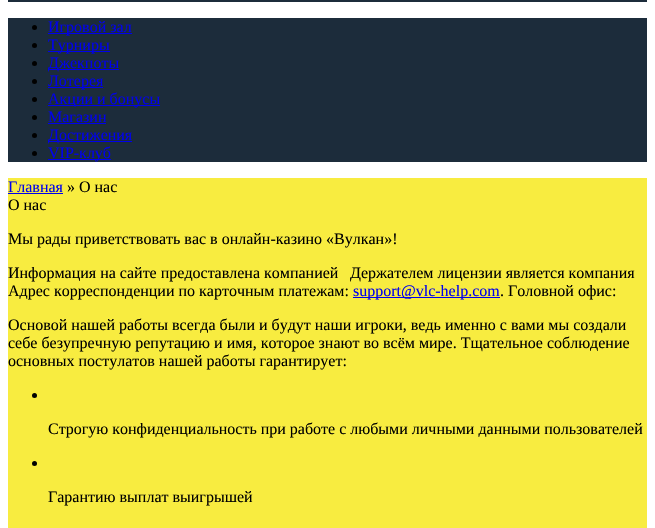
void draw(SkCanvas* canvas) {
	SkPaint paint;
	paint.setAntiAlias(true);
	canvas->clear(0xffffffff);
	paint.setColor(0xff1c2c3b);
	canvas->drawRect(SkRect::MakeXYWH(8, 0, 639, 2), paint);
	canvas->drawRect(SkRect::MakeXYWH(8, 18, 639, 144), paint);
	paint.setColor(0xff000000);
	canvas->drawCircle(34.5, 27.5, 2.5, paint);
	paint.setColor(0xff0000ee);
	canvas->drawRect(SkRect::MakeXYWH(48, 33, 84, 1), paint);
	SkFont f1(fontMgr->matchFamilyStyle("Liberation Serif", SkFontStyle::Normal()), 16);
	f1.setSubpixel(true);
	canvas->drawString("Игровой зал", 48, 32, f1, paint);
	paint.setColor(0xff000000);
	canvas->drawCircle(34.5, 45.5, 2.5, paint);
	paint.setColor(0xff0000ee);
	canvas->drawRect(SkRect::MakeXYWH(48, 51, 62, 1), paint);
	canvas->drawString("Турниры", 48, 50, f1, paint);
	paint.setColor(0xff000000);
	canvas->drawCircle(34.5, 63.5, 2.5, paint);
	paint.setColor(0xff0000ee);
	canvas->drawRect(SkRect::MakeXYWH(48, 69, 71, 1), paint);
	canvas->drawString("Джекпоты", 48, 68, f1, paint);
	paint.setColor(0xff000000);
	canvas->drawCircle(34.5, 81.5, 2.5, paint);
	paint.setColor(0xff0000ee);
	canvas->drawRect(SkRect::MakeXYWH(48, 87, 55, 1), paint);
	canvas->drawString("Лотерея", 48, 86, f1, paint);
	paint.setColor(0xff000000);
	canvas->drawCircle(34.5, 99.5, 2.5, paint);
	paint.setColor(0xff0000ee);
	canvas->drawRect(SkRect::MakeXYWH(48, 105, 112, 1), paint);
	canvas->drawString("Акции и бонусы", 48, 104, f1, paint);
	paint.setColor(0xff000000);
	canvas->drawCircle(34.5, 117.5, 2.5, paint);
	paint.setColor(0xff0000ee);
	canvas->drawString("Магазин", 48, 122, f1, paint);
	canvas->drawRect(SkRect::MakeXYWH(48, 123, 58, 1), paint);
	paint.setColor(0xff000000);
	canvas->drawCircle(34.5, 135.5, 2.5, paint);
	paint.setColor(0xff0000ee);
	canvas->drawRect(SkRect::MakeXYWH(48, 141, 84, 1), paint);
	canvas->drawString("Достижения", 48, 140, f1, paint);
	paint.setColor(0xff000000);
	canvas->drawCircle(34.5, 153.5, 2.5, paint);
	paint.setColor(0xff0000ee);
	canvas->drawRect(SkRect::MakeXYWH(48, 159, 63, 1), paint);
	canvas->drawString("VIP-клуб", 48, 158, f1, paint);
	paint.setColor(0xfff8ec40);
	canvas->drawRect(SkRect::MakeXYWH(8, 178, 639, 350), paint);
	paint.setColor(0xff0000ee);
	canvas->drawString("Главная", 8, 192, f1, paint);
	canvas->drawRect(SkRect::MakeXYWH(8, 193, 55, 1), paint);
	paint.setColor(0xff000000);
	canvas->drawString("» О нас", 67, 192, f1, paint);
	canvas->drawString("О нас", 8, 210, f1, paint);
	canvas->drawString("Мы рады приветствовать вас в онлайн-казино «Вулкан»!", 8, 244, f1, paint);
	canvas->drawString("Информация на сайте предоставлена компанией", 8, 278, f1, paint);
	canvas->drawString("Держателем лицензии является компания", 350, 278, f1, paint);
	canvas->drawString("Адрес корреспонденции по карточным платежам:", 8, 296, f1, paint);
	paint.setColor(0xff0000ee);
	canvas->drawRect(SkRect::MakeXYWH(353, 297, 147, 1), paint);
	canvas->drawString("support@vlc-help.com", 353, 296, f1, paint);
	paint.setColor(0xff000000);
	canvas->drawString(". Головной офис:", 500, 296, f1, paint);
	canvas->drawString("Основой нашей работы всегда были и будут наши игроки, ведь именно с вами мы создали", 8, 330, f1, paint);
	canvas->drawString("себе безупречную репутацию и имя, которое знают во всём мире. Тщательное соблюдение", 8, 348, f1, paint);
	canvas->drawString("основных постулатов нашей работы гарантирует:", 8, 366, f1, paint);
	canvas->drawCircle(34.5, 395.5, 2.5, paint);
	canvas->drawString("Строгую конфиденциальность при работе с любыми личными данными пользователей", 48, 434, f1, paint);
	canvas->drawCircle(34.5, 463.5, 2.5, paint);
	canvas->drawString("Гарантию выплат выигрышей", 48, 502, f1, paint);
}
